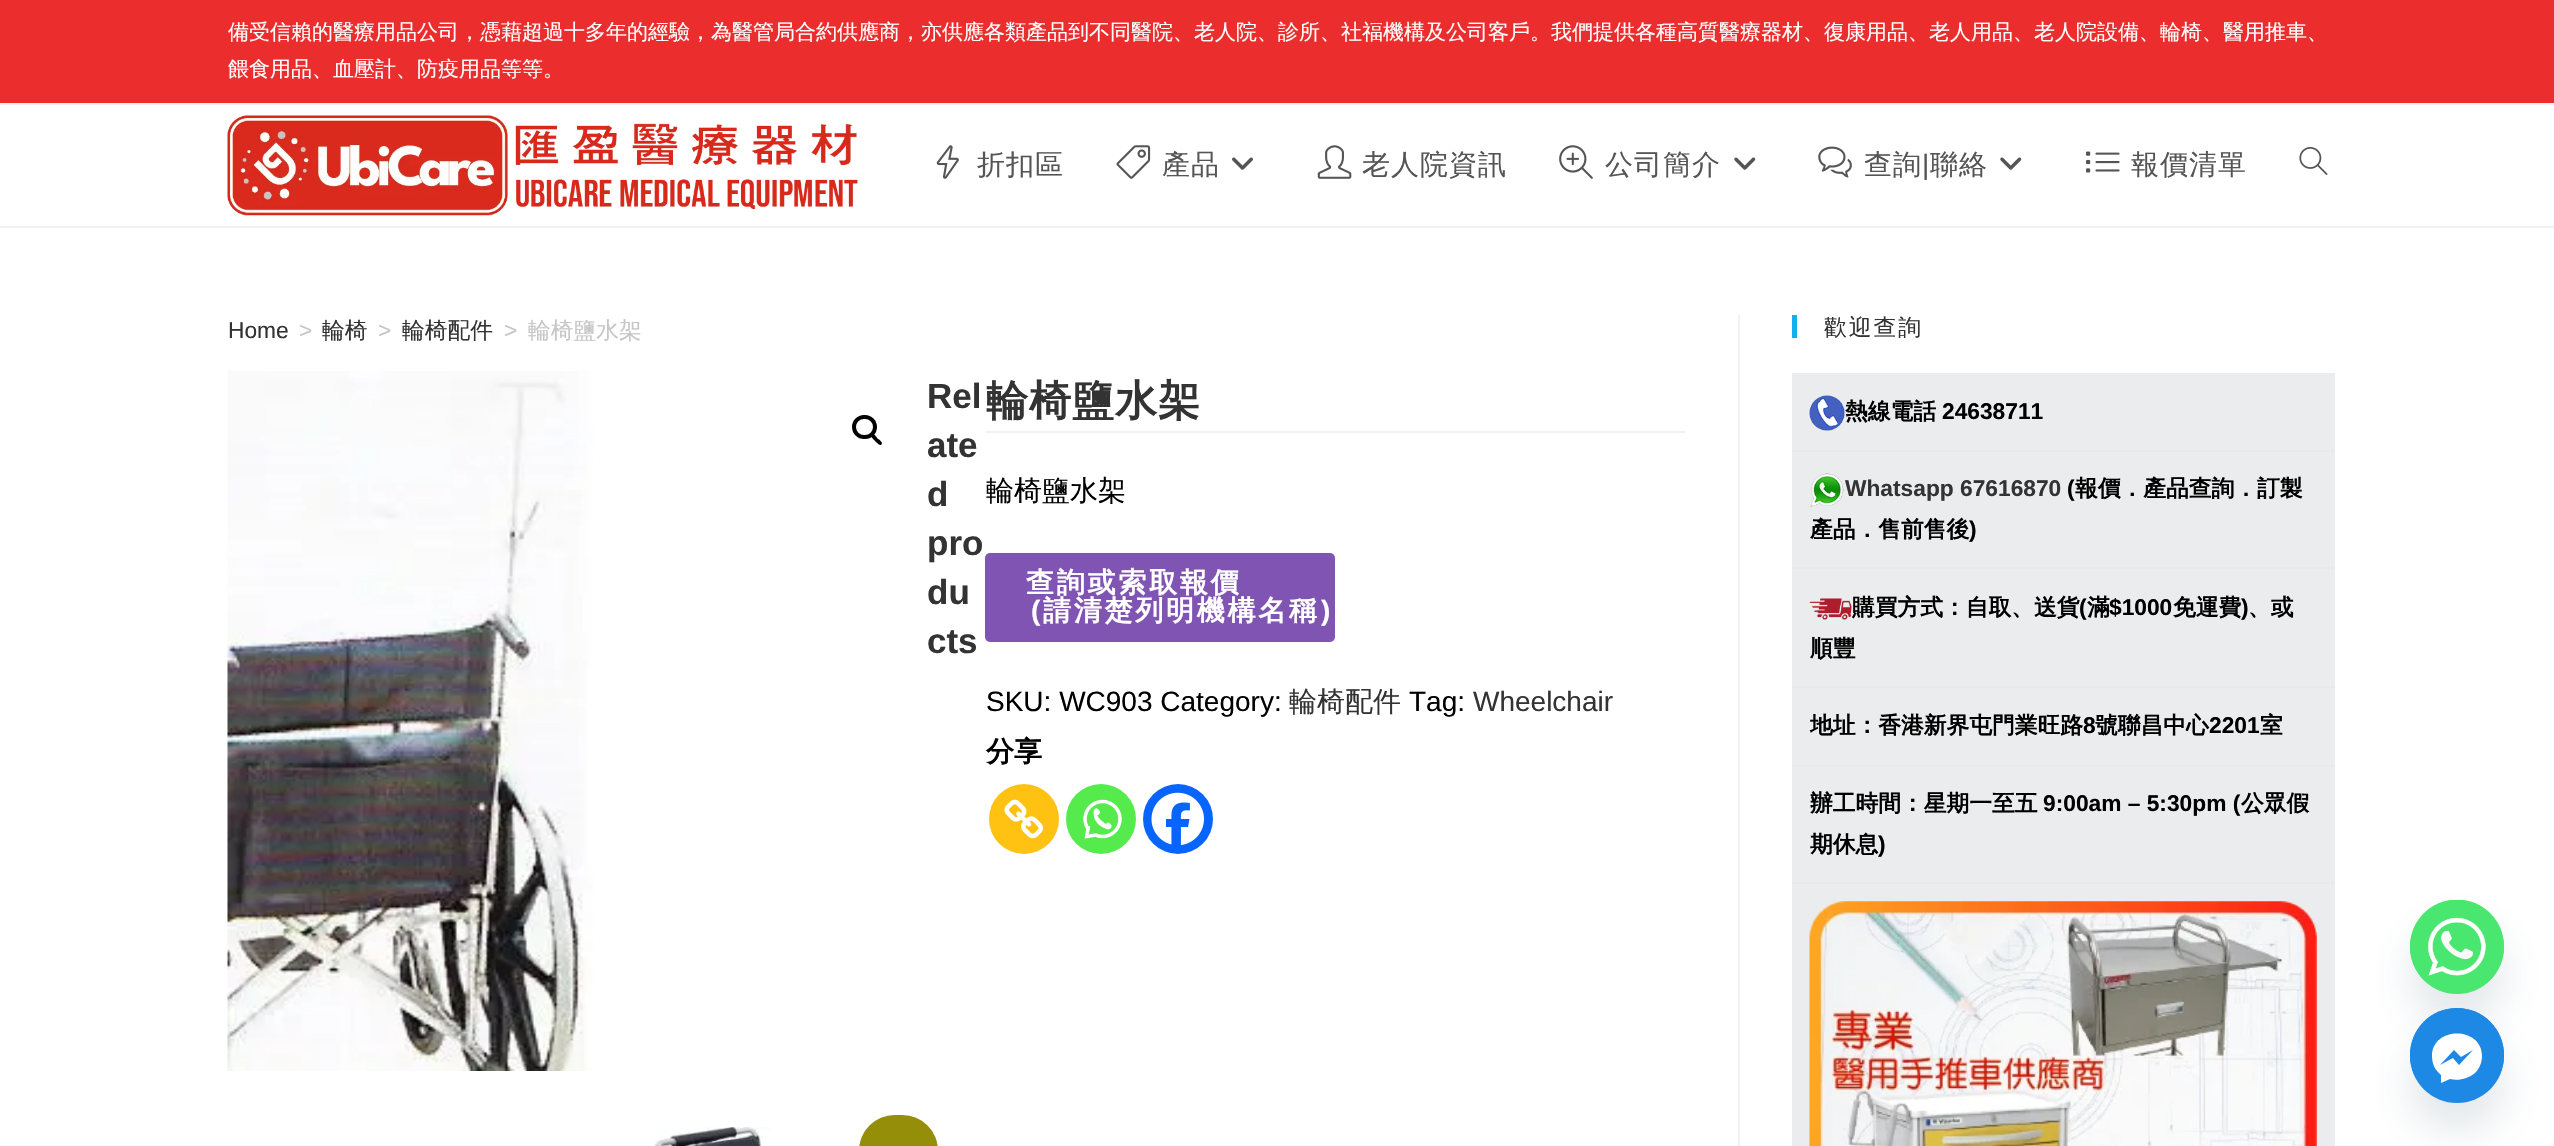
void draw(SkCanvas* canvas) {
	SkPaint paint;
	paint.setAntiAlias(true);
	auto spacedText = [&](const char* s, float x, float y, const SkFont& font, const SkPaint& ink, float letter, float word) {
		std::vector<SkGlyphID> glyphs(font.countText(s, strlen(s), SkTextEncoding::kUTF8));
		std::vector<float> xs(glyphs.size());
		font.textToGlyphs(s, strlen(s), SkTextEncoding::kUTF8, glyphs);
		font.getXPos(glyphs, xs, x);
		float extra = 0;
		for (size_t i = 0; i < glyphs.size(); i++) {
			xs[i] += extra;
			extra += letter + word * (glyphs[i] == font.unicharToGlyph(' '));
		}
		canvas->drawTextBlob(SkTextBlob::MakeFromPosHGlyphs(glyphs, xs, y, font), 0, 0, ink);
	};
	auto svgPath = [&](const char* data, bool evenOdd = false) {
		SkPath result = *SkParsePath::FromSVGString(data);
		if (evenOdd) result.setFillType(SkPathFillType::kEvenOdd);
		return result;
	};
	canvas->clear(0xffffffff);
	paint.setColor(0xffeb2d2e);
	canvas->drawRect(SkRect::MakeXYWH(0, 0, 2554, 103), paint);
	paint.setColor(0xfff1f1f1);
	canvas->drawRect(SkRect::MakeXYWH(0, 103, 2554, 2), paint);
	SkFont f1(fontMgr->matchFamilyStyle("WenQuanYi Zen Hei", SkFontStyle(500, SkFontStyle::kNormal_Width, SkFontStyle::kUpright_Slant)), 21);
	f1.setSubpixel(true);
	paint.setColor(0xffffffff);
	canvas->drawString("備受信賴的醫療用品公司，憑藉超過十多年的經驗，為醫管局合約供應商，亦供應各類產品到不同醫院、老人院、診所、社福機構及公司客戶。我們提供各種高質醫療器材、復康用品、老人用品、老人院設備、輪椅、醫用推車、", 228, 39, f1, paint);
	canvas->drawString("餵食用品、血壓計、防疫用品等等。", 228, 76, f1, paint);
	paint.setColor(0xfff1f1f1);
	canvas->drawRect(SkRect::MakeXYWH(0, 226, 2554, 2), paint);
	canvas->drawImageRect(SkImages::DeferredFromEncodedData(SkData::MakeFromFileName("img1.png")), SkRect::MakeXYWH(227, 115, 631, 101), SkSamplingOptions());
	canvas->drawImageRect(SkImages::DeferredFromEncodedData(SkData::MakeFromFileName("img2.png")), SkRect::MakeXYWH(936, 145, 23, 34), SkSamplingOptions());
	SkFont f2(fontMgr->matchFamilyStyle("WenQuanYi Zen Hei", SkFontStyle(500, SkFontStyle::kNormal_Width, SkFontStyle::kUpright_Slant)), 28);
	f2.setSubpixel(true);
	paint.setColor(0xff555555);
	spacedText("折扣區", 977, 174, f2, paint, 1, 0);
	canvas->drawImageRect(SkImages::DeferredFromEncodedData(SkData::MakeFromFileName("img3.png")), SkRect::MakeXYWH(1116, 145, 35, 34), SkSamplingOptions());
	spacedText("產品", 1162, 174, f2, paint, 1, 0);
	canvas->drawImageRect(SkImages::DeferredFromEncodedData(SkData::MakeFromFileName("img4.png")), SkRect::MakeXYWH(1232, 157, 21, 13), SkSamplingOptions());
	canvas->drawImageRect(SkImages::DeferredFromEncodedData(SkData::MakeFromFileName("img5.png")), SkRect::MakeXYWH(1317, 145, 35, 34), SkSamplingOptions());
	spacedText("老人院資訊", 1362, 174, f2, paint, 1, 0);
	canvas->drawImageRect(SkImages::DeferredFromEncodedData(SkData::MakeFromFileName("img6.png")), SkRect::MakeXYWH(1559, 145, 34, 34), SkSamplingOptions());
	spacedText("公司簡介", 1605, 174, f2, paint, 1, 0);
	canvas->drawImageRect(SkImages::DeferredFromEncodedData(SkData::MakeFromFileName("img7.png")), SkRect::MakeXYWH(1734, 157, 22, 13), SkSamplingOptions());
	canvas->drawImageRect(SkImages::DeferredFromEncodedData(SkData::MakeFromFileName("img8.png")), SkRect::MakeXYWH(1818, 146, 34, 32), SkSamplingOptions());
	spacedText("查詢", 1864, 174, f2, paint, 1, 0);
	SkFont f3(fontMgr->matchFamilyStyle("Liberation Sans", SkFontStyle::Normal()), 28);
	f3.setSubpixel(true);
	spacedText("|", 1922, 174, f3, paint, 1, 0);
	spacedText("聯絡", 1930, 174, f2, paint, 1, 0);
	canvas->drawImageRect(SkImages::DeferredFromEncodedData(SkData::MakeFromFileName("img7.png")), SkRect::MakeXYWH(2000, 157, 22, 13), SkSamplingOptions());
	canvas->drawImageRect(SkImages::DeferredFromEncodedData(SkData::MakeFromFileName("img9.png")), SkRect::MakeXYWH(2086, 151, 34, 22), SkSamplingOptions());
	spacedText("報價清單", 2131, 174, f2, paint, 1, 0);
	canvas->drawImageRect(SkImages::DeferredFromEncodedData(SkData::MakeFromFileName("img10.png")), SkRect::MakeXYWH(2299, 147, 29, 28), SkSamplingOptions());
	paint.setColor(0xfff1f1f1);
	canvas->drawRect(SkRect::MakeXYWH(1738, 315, 2, 831), paint);
	SkFont f4(fontMgr->matchFamilyStyle("Liberation Sans", SkFontStyle::Normal()), 22.75);
	f4.setSubpixel(true);
	paint.setColor(0xff333333);
	canvas->drawString("Home", 228, 338, f4, paint);
	paint.setColor(0xffc6c6c6);
	canvas->drawString(">", 299, 338, f4, paint);
	SkFont f5(fontMgr->matchFamilyStyle("WenQuanYi Zen Hei", SkFontStyle(500, SkFontStyle::kNormal_Width, SkFontStyle::kUpright_Slant)), 22.75);
	f5.setSubpixel(true);
	paint.setColor(0xff333333);
	canvas->drawString("輪椅", 322, 338, f5, paint);
	paint.setColor(0xffc6c6c6);
	canvas->drawString(">", 378, 338, f4, paint);
	paint.setColor(0xff333333);
	canvas->drawString("輪椅配件", 402, 338, f5, paint);
	paint.setColor(0xffc6c6c6);
	canvas->drawString(">", 504, 338, f4, paint);
	canvas->drawString("輪椅鹽水架", 528, 338, f5, paint);
	canvas->drawImageRect(SkImages::DeferredFromEncodedData(SkData::MakeFromFileName("img11.png")), SkRect::MakeXYWH(227, 371, 366, 700), SkSamplingOptions());
	paint.setStroke(true);
	paint.setStrokeWidth(4);
	paint.setColor(0xff000000);
	canvas->drawRoundRect(SkRect::MakeXYWH(854, 417, 21, 20), 10, 10, paint);
	paint.setStroke(false);
	canvas->drawPath(svgPath("M871.5 434.5C873.5 432.5 876.5 437 877.5 438.5C879 439.5 883.5 442.5 881.5 444.5C879.5 446.5 876.5 442 875 441C874 439.5 869.5 436.5 871.5 434.5Z"), paint);
	SkFont f6(fontMgr->matchFamilyStyle("Liberation Sans", SkFontStyle::Bold()), 35);
	f6.setSubpixel(true);
	paint.setColor(0xff333333);
	canvas->drawString("Rel", 927, 408, f6, paint);
	canvas->drawString("ate", 927, 457, f6, paint);
	canvas->drawString("d", 927, 506, f6, paint);
	canvas->drawString("pro", 927, 555, f6, paint);
	canvas->drawString("du", 927, 604, f6, paint);
	canvas->drawString("cts", 927, 653, f6, paint);
	canvas->drawImageRect(SkImages::DeferredFromEncodedData(SkData::MakeFromFileName("img12.png")), SkRect::MakeXYWH(654, 1127, 117, 19), SkSamplingOptions());
	paint.setColor(0xff958e09);
	canvas->drawRoundRect(SkRect::MakeXYWH(859, 1115, 79, 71), 39.5, 39.5, paint);
	paint.setColor(0xfff1f1f1);
	canvas->drawRect(SkRect::MakeXYWH(985, 431, 700, 2), paint);
	SkFont f7(fontMgr->matchFamilyStyle("WenQuanYi Zen Hei", SkFontStyle::Bold()), 42);
	f7.setSubpixel(true);
	paint.setColor(0xff333333);
	spacedText("輪椅鹽水架", 986, 415, f7, paint, 1, 0);
	paint.setColor(0xff000000);
	canvas->drawString("輪椅鹽水架", 986, 500, f2, paint);
	paint.setColor(0xff7f54b3);
	canvas->drawRoundRect(SkRect::MakeXYWH(985, 553, 350, 89), 5, 5, paint);
	SkFont f8(fontMgr->matchFamilyStyle("WenQuanYi Zen Hei", SkFontStyle::Bold()), 28);
	f8.setSubpixel(true);
	paint.setColor(0xffffffff);
	spacedText("查詢或索取報價", 1026, 592, f8, paint, 2.75, 0);
	SkFont f9(fontMgr->matchFamilyStyle("Liberation Sans", SkFontStyle::Bold()), 28);
	f9.setSubpixel(true);
	spacedText("(", 1031, 620, f9, paint, 2.75, 0);
	spacedText("請清楚列明機構名稱", 1043, 620, f8, paint, 2.75, 0);
	spacedText(")", 1321, 620, f9, paint, 2.75, 0);
	paint.setColor(0xff000000);
	canvas->drawString("SKU: WC903 Category:", 986, 711, f3, paint);
	paint.setColor(0xff333333);
	canvas->drawString("輪椅配件", 1289, 711, f2, paint);
	paint.setColor(0xff000000);
	canvas->drawString("Tag:", 1409, 711, f3, paint);
	paint.setColor(0xff333333);
	canvas->drawString("Wheelchair", 1473, 711, f3, paint);
	paint.setColor(0xff000000);
	canvas->drawString("分享", 986, 761, f8, paint);
	paint.setColor(0xffffc112);
	canvas->drawCircle(1024, 819, 35, paint);
	canvas->drawImageRect(SkImages::DeferredFromEncodedData(SkData::MakeFromFileName("img13.png")), SkRect::MakeXYWH(1004, 799, 39, 40), SkSamplingOptions());
	paint.setColor(0xff55eb4c);
	canvas->drawCircle(1101, 819, 35, paint);
	canvas->drawImageRect(SkImages::DeferredFromEncodedData(SkData::MakeFromFileName("img14.png")), SkRect::MakeXYWH(1083, 799, 39, 40), SkSamplingOptions());
	paint.setColor(0xff0765fe);
	canvas->drawCircle(1178, 819, 35, paint);
	canvas->drawImageRect(SkImages::DeferredFromEncodedData(SkData::MakeFromFileName("img15.png")), SkRect::MakeXYWH(1151, 792, 53, 53), SkSamplingOptions());
	paint.setColor(0xff13aff0);
	canvas->drawRect(SkRect::MakeXYWH(1792, 315, 5, 23), paint);
	paint.setColor(0xff333333);
	spacedText("歡迎查詢", 1824, 335, f5, paint, 2, 0);
	paint.setColor(0xffebeced);
	canvas->drawRect(SkRect::MakeXYWH(1792, 373, 543, 773), paint);
	paint.setColor(0xffe9e9e9);
	canvas->drawRect(SkRect::MakeXYWH(1792, 450, 543, 2), paint);
	canvas->drawImageRect(SkImages::DeferredFromEncodedData(SkData::MakeFromFileName("img16.png")), SkRect::MakeXYWH(1809, 395, 36, 36), SkSamplingOptions());
	SkFont f10(fontMgr->matchFamilyStyle("WenQuanYi Zen Hei", SkFontStyle::Bold()), 22.75);
	f10.setSubpixel(true);
	paint.setColor(0xff000000);
	canvas->drawString("熱線電話", 1845, 419, f10, paint);
	SkFont f11(fontMgr->matchFamilyStyle("Liberation Sans", SkFontStyle::Bold()), 22.75);
	f11.setSubpixel(true);
	canvas->drawString("24638711", 1942, 419, f11, paint);
	paint.setColor(0xffe9e9e9);
	canvas->drawRect(SkRect::MakeXYWH(1792, 567, 543, 2), paint);
	canvas->drawImageRect(SkImages::DeferredFromEncodedData(SkData::MakeFromFileName("img17.png")), SkRect::MakeXYWH(1810, 473, 34, 34), SkSamplingOptions());
	paint.setColor(0xff333333);
	canvas->drawString("Whatsapp 67616870", 1845, 496, f11, paint);
	paint.setColor(0xff000000);
	canvas->drawString("(", 2067, 496, f11, paint);
	canvas->drawString("報價．產品查詢．訂製", 2075, 496, f10, paint);
	canvas->drawString("產品．售前售後", 1810, 537, f10, paint);
	canvas->drawString(")", 1969, 537, f11, paint);
	paint.setColor(0xffe9e9e9);
	canvas->drawRect(SkRect::MakeXYWH(1792, 686, 543, 2), paint);
	canvas->drawImageRect(SkImages::DeferredFromEncodedData(SkData::MakeFromFileName("img18.png")), SkRect::MakeXYWH(1809, 598, 43, 22), SkSamplingOptions());
	paint.setColor(0xff000000);
	canvas->drawString("購買方式：自取、送貨", 1852, 615, f10, paint);
	canvas->drawString("(", 2079, 615, f11, paint);
	canvas->drawString("滿", 2087, 615, f10, paint);
	canvas->drawString("$1000", 2109, 615, f11, paint);
	canvas->drawString("免運費", 2173, 615, f10, paint);
	canvas->drawString(")", 2241, 615, f11, paint);
	canvas->drawString("、或", 2248, 615, f10, paint);
	canvas->drawString("順豐", 1810, 656, f10, paint);
	paint.setColor(0xffe9e9e9);
	canvas->drawRect(SkRect::MakeXYWH(1792, 765, 543, 2), paint);
	paint.setColor(0xff000000);
	canvas->drawString("地址：香港新界屯門業旺路", 1810, 733, f10, paint);
	canvas->drawString("8", 2083, 733, f11, paint);
	canvas->drawString("號聯昌中心", 2095, 733, f10, paint);
	canvas->drawString("2201", 2209, 733, f11, paint);
	canvas->drawString("室", 2260, 733, f10, paint);
	paint.setColor(0xffe9e9e9);
	canvas->drawRect(SkRect::MakeXYWH(1792, 882, 543, 2), paint);
	paint.setColor(0xff000000);
	canvas->drawString("辦工時間：星期一至五", 1810, 811, f10, paint);
	canvas->drawString("9:00am – 5:30pm (", 2043, 811, f11, paint);
	canvas->drawString("公眾假", 2241, 811, f10, paint);
	canvas->drawString("期休息", 1810, 852, f10, paint);
	canvas->drawString(")", 1878, 852, f11, paint);
	canvas->drawImageRect(SkImages::DeferredFromEncodedData(SkData::MakeFromFileName("img19.png")), SkRect::MakeXYWH(1809, 901, 508, 245), SkSamplingOptions());
	paint.setColor(0x2949687e);
	paint.setMaskFilter(SkMaskFilter::MakeBlur(kNormal_SkBlurStyle, 21));
	canvas->drawRoundRect(SkRect::MakeXYWH(2410, 928, 94, 94), 47, 47, paint);
	paint.setMaskFilter(nullptr);
	paint.setColor(0xff49e670);
	canvas->drawCircle(2457, 947, 47, paint);
	canvas->drawImageRect(SkImages::DeferredFromEncodedData(SkData::MakeFromFileName("img20.png")), SkRect::MakeXYWH(2410, 900, 94, 94), SkSamplingOptions());
	paint.setColor(0x2949687e);
	paint.setMaskFilter(SkMaskFilter::MakeBlur(kNormal_SkBlurStyle, 21));
	canvas->drawRoundRect(SkRect::MakeXYWH(2410, 1036, 94, 95), 47, 47, paint);
	paint.setMaskFilter(nullptr);
	paint.setColor(0xff1e88e5);
	canvas->drawRoundRect(SkRect::MakeXYWH(2410, 1008, 94, 95), 47, 47, paint);
	canvas->drawCircle(2457, 1055, 47, paint);
	paint.setColor(0xffffffff);
	canvas->drawPath(svgPath("M2432 1056C2432 1026 2482 1026 2482 1056C2482 1063 2479 1069 2475 1073C2468 1079 2458 1081 2450 1079L2441 1083V1075C2435 1070 2432 1064 2432 1056ZM2453 1058L2459 1065L2473 1050L2461 1057L2454 1050L2440 1065Z", true), paint);
}
